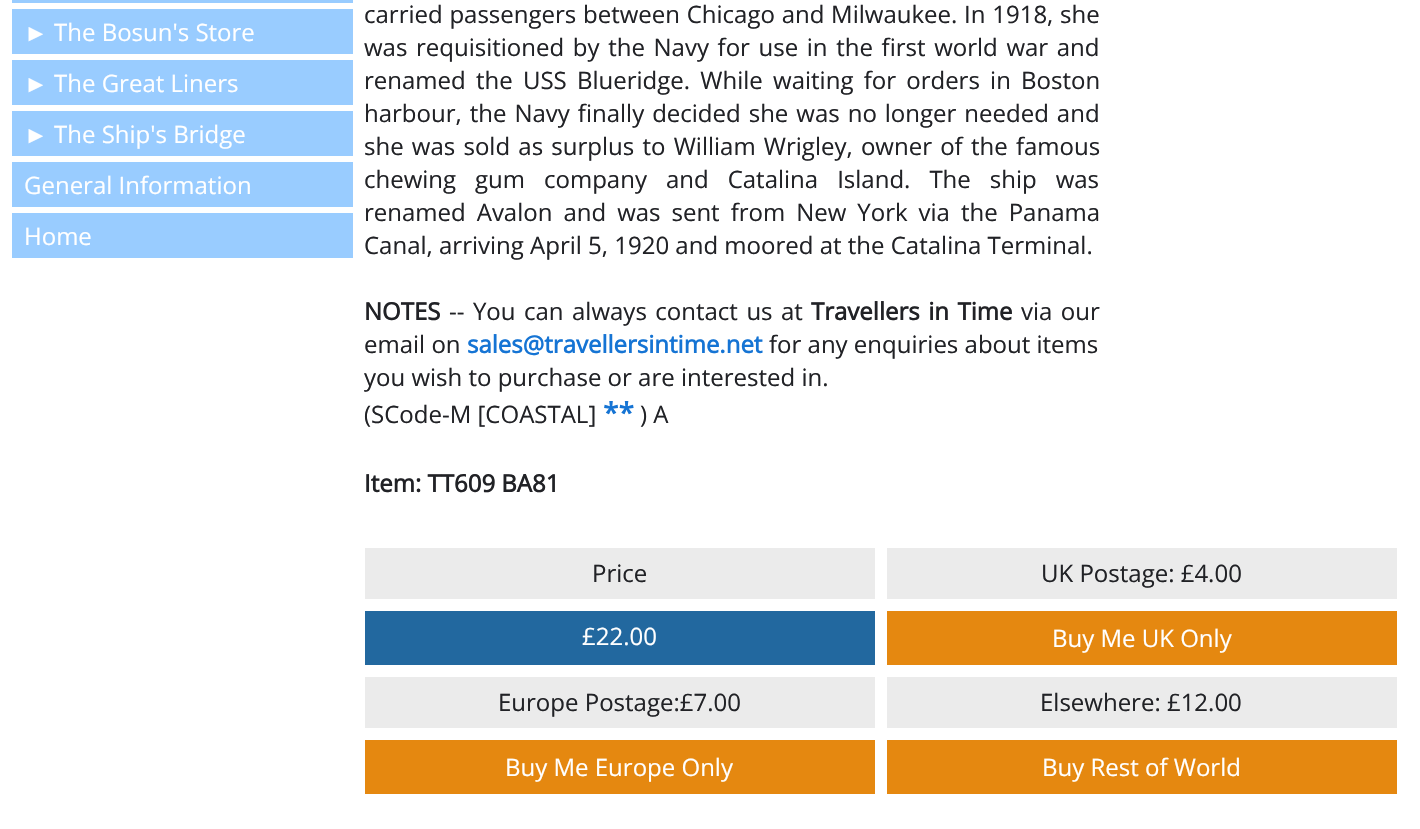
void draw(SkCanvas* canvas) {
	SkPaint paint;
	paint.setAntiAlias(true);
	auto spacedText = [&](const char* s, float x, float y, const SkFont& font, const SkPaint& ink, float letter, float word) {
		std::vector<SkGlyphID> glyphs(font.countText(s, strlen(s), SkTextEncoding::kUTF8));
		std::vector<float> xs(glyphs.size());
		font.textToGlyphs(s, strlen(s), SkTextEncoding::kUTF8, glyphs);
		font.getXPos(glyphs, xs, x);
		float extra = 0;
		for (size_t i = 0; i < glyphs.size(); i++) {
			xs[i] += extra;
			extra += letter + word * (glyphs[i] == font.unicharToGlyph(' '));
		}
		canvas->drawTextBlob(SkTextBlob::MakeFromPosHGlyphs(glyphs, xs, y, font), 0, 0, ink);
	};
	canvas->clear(0xffffffff);
	paint.setColor(0xff99ccff);
	canvas->drawRect(SkRect::MakeXYWH(12, 0, 341, 3), paint);
	canvas->drawRect(SkRect::MakeXYWH(12, 9, 341, 45), paint);
	SkFont f1(fontMgr->matchFamilyStyle("Liberation Sans", SkFontStyle::Normal()), 24);
	f1.setSubpixel(true);
	paint.setColor(0xffffffff);
	canvas->drawString("►", 24, 41, f1, paint);
	SkFont f2(fontMgr->matchFamilyStyle("Open Sans", SkFontStyle::Normal()), 24);
	f2.setSubpixel(true);
	canvas->drawString("The Bosun's Store", 54, 41, f2, paint);
	paint.setColor(0xff99ccff);
	canvas->drawRect(SkRect::MakeXYWH(12, 60, 341, 45), paint);
	paint.setColor(0xffffffff);
	canvas->drawString("►", 24, 92, f1, paint);
	canvas->drawString("The Great Liners", 54, 92, f2, paint);
	paint.setColor(0xff99ccff);
	canvas->drawRect(SkRect::MakeXYWH(12, 111, 341, 45), paint);
	paint.setColor(0xffffffff);
	canvas->drawString("►", 24, 143, f1, paint);
	canvas->drawString("The Ship's Bridge", 54, 143, f2, paint);
	paint.setColor(0xff99ccff);
	canvas->drawRect(SkRect::MakeXYWH(12, 162, 341, 45), paint);
	paint.setColor(0xffffffff);
	canvas->drawString("General Information", 24, 194, f2, paint);
	paint.setColor(0xff99ccff);
	canvas->drawRect(SkRect::MakeXYWH(12, 213, 341, 45), paint);
	paint.setColor(0xffffffff);
	canvas->drawString("Home", 24, 245, f2, paint);
	paint.setColor(0xff212226);
	spacedText("carried passengers between Chicago and Milwaukee. In 1918, she", 364, 23, f2, paint, 0, 0.5);
	spacedText("was requisitioned by the Navy for use in the first world war and", 364, 56, f2, paint, 0, 2.4);
	spacedText("renamed the USS Blueridge. While waiting for orders in Boston", 364, 89, f2, paint, 0, 4);
	spacedText("harbour, the Navy finally decided she was no longer needed and", 364, 122, f2, paint, 0, 1.75);
	spacedText("she was sold as surplus to William Wrigley, owner of the famous", 364, 155, f2, paint, 0, 2);
	spacedText("chewing gum company and Catalina Island. The ship was", 364, 188, f2, paint, 0, 12.75);
	spacedText("renamed Avalon and was sent from New York via the Panama", 364, 221, f2, paint, 0, 4.75);
	canvas->drawString("Canal, arriving April 5, 1920 and moored at the Catalina Terminal.", 364, 254, f2, paint);
	SkFont f3(fontMgr->matchFamilyStyle("Open Sans", SkFontStyle::Bold()), 24);
	f3.setSubpixel(true);
	canvas->drawString("NOTES", 364, 320, f3, paint);
	spacedText("-- You can always contact us at", 449, 320, f2, paint, 0, 2.25);
	spacedText("Travellers in Time", 811, 320, f3, paint, 0, 2.25);
	spacedText("via our", 1021, 320, f2, paint, 0, 2.25);
	canvas->drawString("email on", 364, 353, f2, paint);
	paint.setColor(0xff1574d4);
	canvas->drawString("sales@travellersintime.net", 467, 353, f3, paint);
	paint.setColor(0xff212226);
	canvas->drawString("for any enquiries about items", 769, 353, f2, paint);
	canvas->drawString("you wish to purchase or are interested in.", 364, 386, f2, paint);
	canvas->drawString("(SCode-M [COASTAL]", 364, 423, f2, paint);
	SkFont f4(fontMgr->matchFamilyStyle("Open Sans", SkFontStyle::Bold()), 28);
	f4.setSubpixel(true);
	paint.setColor(0xff1574d4);
	canvas->drawString("**", 603, 423, f4, paint);
	paint.setColor(0xff212226);
	canvas->drawString(") A", 640, 423, f2, paint);
	canvas->drawString("Item: TT609 BA81", 364, 492, f3, paint);
	paint.setColor(0xffebebeb);
	canvas->drawRect(SkRect::MakeXYWH(365, 548, 510, 51), paint);
	paint.setColor(0xff212226);
	canvas->drawString("Price", 592, 582, f2, paint);
	paint.setColor(0xff22689f);
	canvas->drawRect(SkRect::MakeXYWH(365, 611, 510, 54), paint);
	paint.setColor(0xffffffff);
	canvas->drawString("£22.00", 582, 645, f2, paint);
	paint.setColor(0xffebebeb);
	canvas->drawRect(SkRect::MakeXYWH(887, 548, 510, 51), paint);
	paint.setColor(0xff212226);
	canvas->drawString("UK Postage: £4.00", 1041, 582, f2, paint);
	paint.setColor(0xffe58810);
	canvas->drawRect(SkRect::MakeXYWH(887, 611, 510, 54), paint);
	paint.setColor(0xffffffff);
	canvas->drawString("Buy Me UK Only", 1052, 647, f2, paint);
	paint.setColor(0xffebebeb);
	canvas->drawRect(SkRect::MakeXYWH(365, 677, 510, 51), paint);
	paint.setColor(0xff212226);
	canvas->drawString("Europe Postage:£7.00", 498, 711, f2, paint);
	paint.setColor(0xffe58810);
	canvas->drawRect(SkRect::MakeXYWH(365, 740, 510, 54), paint);
	paint.setColor(0xffffffff);
	canvas->drawString("Buy Me Europe Only", 505, 776, f2, paint);
	paint.setColor(0xffebebeb);
	canvas->drawRect(SkRect::MakeXYWH(887, 677, 510, 51), paint);
	paint.setColor(0xff212226);
	canvas->drawString("Elsewhere: £12.00", 1040, 711, f2, paint);
	paint.setColor(0xffe58810);
	canvas->drawRect(SkRect::MakeXYWH(887, 740, 510, 54), paint);
	paint.setColor(0xffffffff);
	canvas->drawString("Buy Rest of World", 1042, 776, f2, paint);
}
